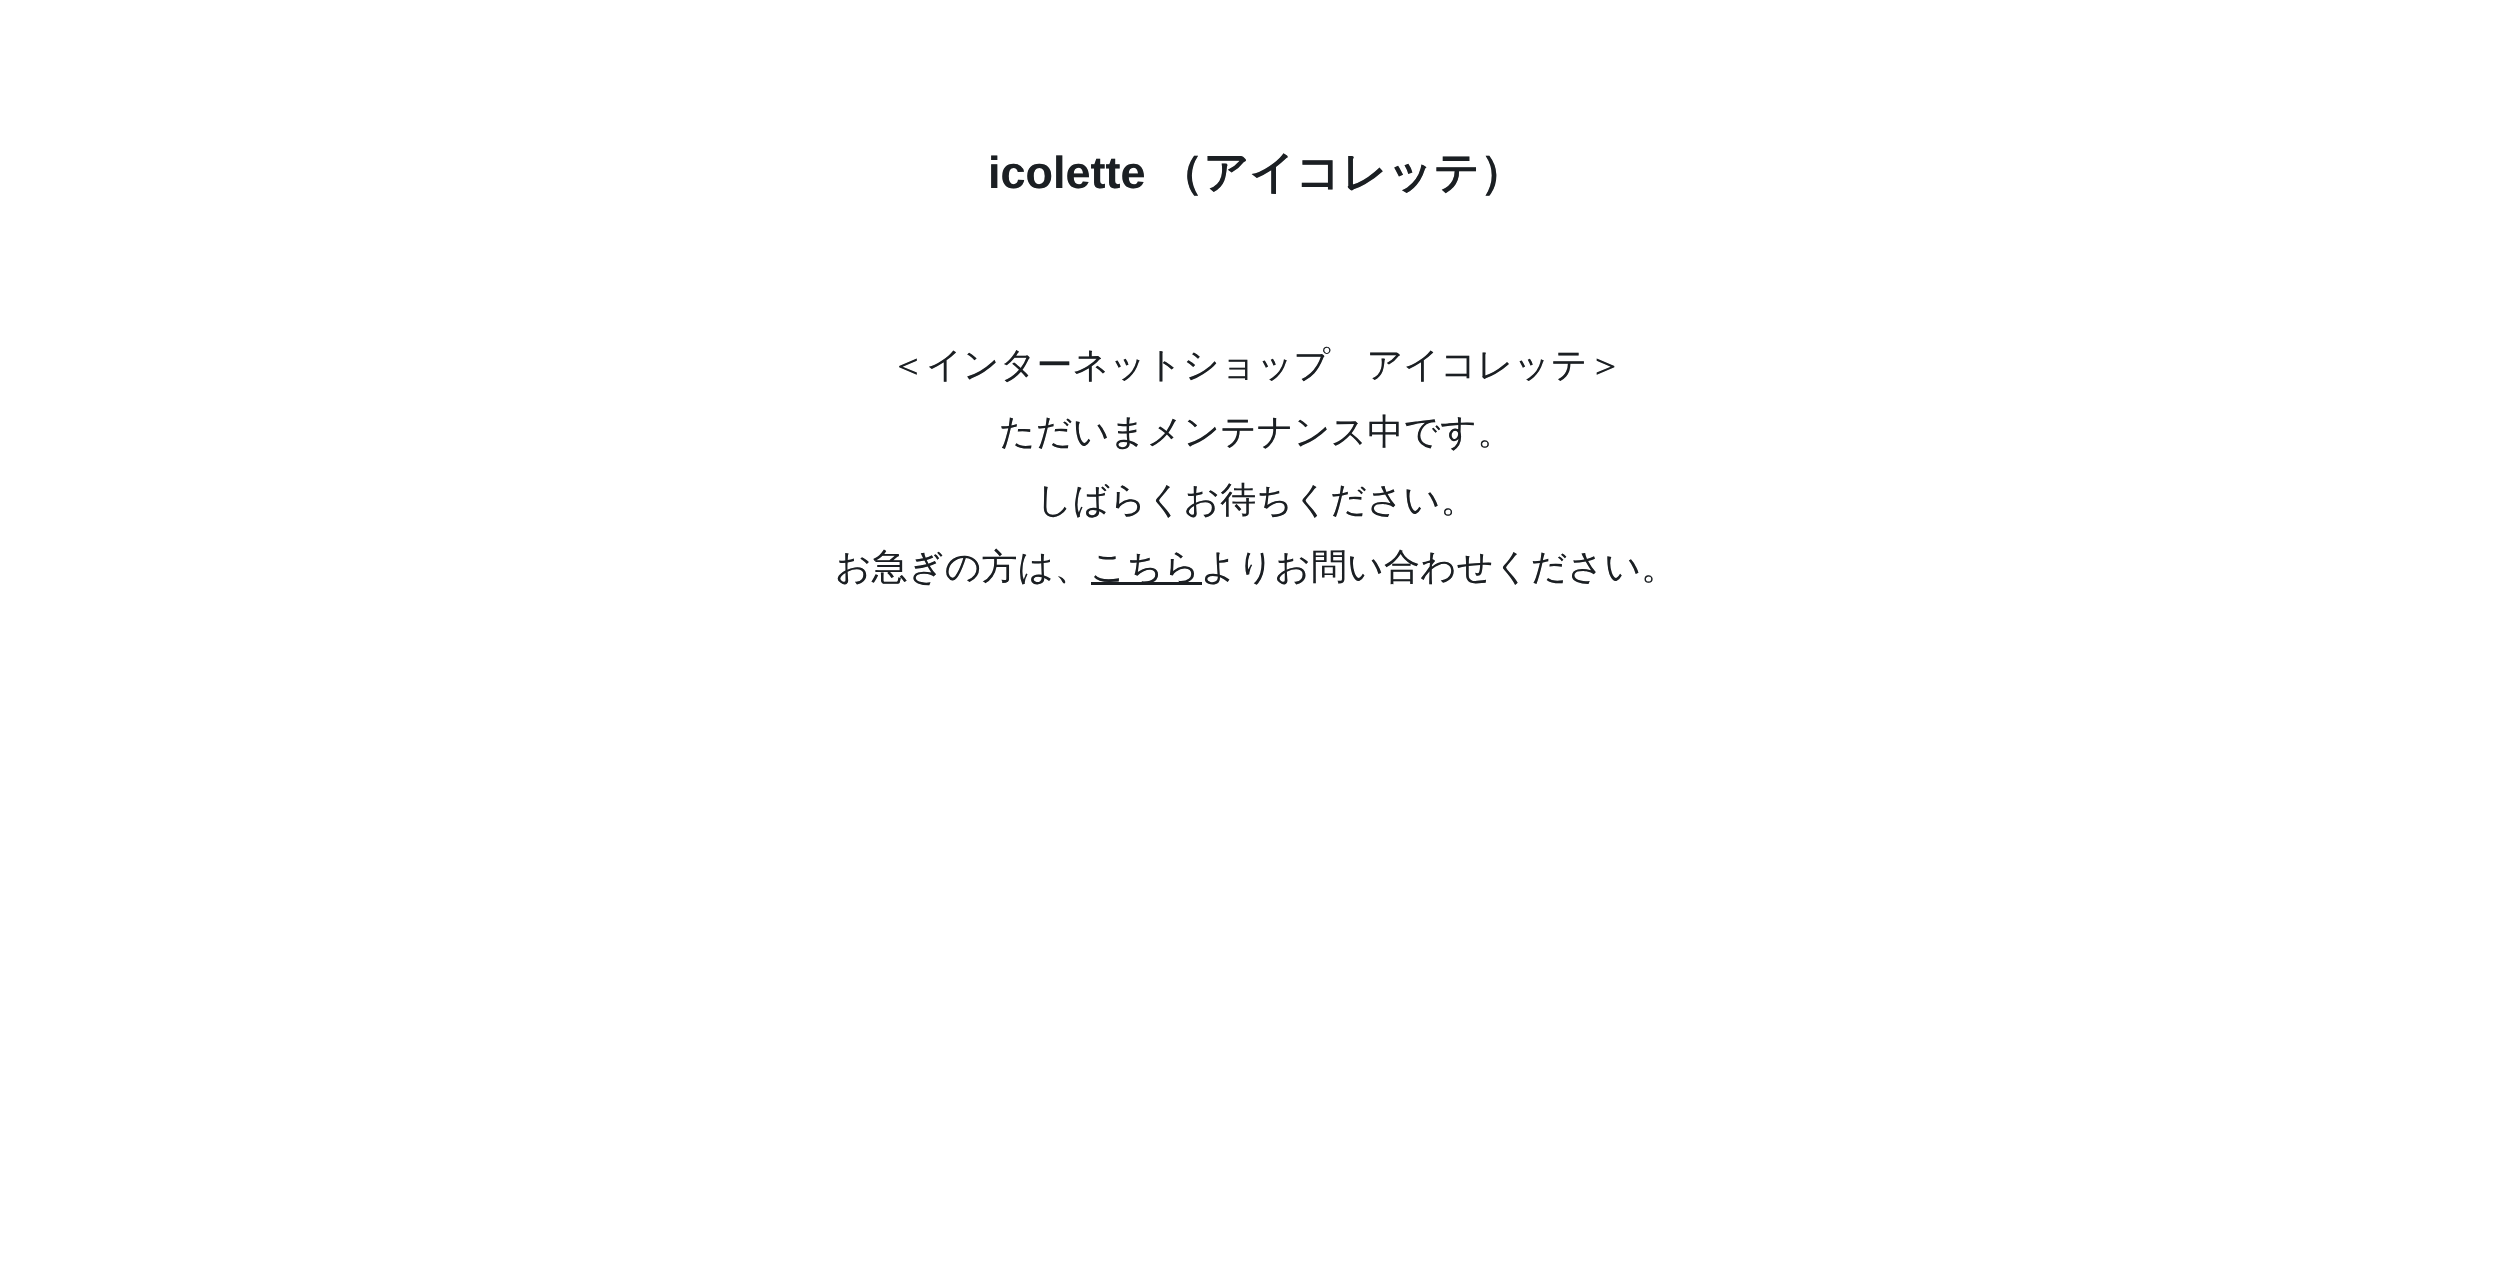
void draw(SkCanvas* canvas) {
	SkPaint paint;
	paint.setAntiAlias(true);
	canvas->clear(0xffffffff);
	SkFont f1(fontMgr->matchFamilyStyle("Liberation Sans", SkFontStyle::Bold()), 45);
	f1.setSubpixel(true);
	paint.setColor(0xff1b1f23);
	canvas->drawString("icolette", 988, 188, f1, paint);
	SkFont f2(fontMgr->matchFamilyStyle("WenQuanYi Zen Hei", SkFontStyle::Bold()), 45);
	f2.setSubpixel(true);
	canvas->drawString("（アイコレッテ）", 1158, 188, f2, paint);
	SkFont f3(fontMgr->matchFamilyStyle("WenQuanYi Zen Hei", SkFontStyle(500, SkFontStyle::kNormal_Width, SkFontStyle::kUpright_Slant)), 36);
	f3.setSubpixel(true);
	canvas->drawString("＜インターネットショップ　アイコレッテ＞", 890, 377, f3, paint);
	canvas->drawString("ただいまメンテナンス中です。", 999, 444, f3, paint);
	canvas->drawString("しばらくお待ちください。", 1036, 512, f3, paint);
	canvas->drawString("お急ぎの方は、", 835, 579, f3, paint);
	canvas->drawRect(SkRect::MakeXYWH(1091, 582, 111, 3), paint);
	canvas->drawString("こちらよりお問い合わせください。", 1090, 579, f3, paint);
}
